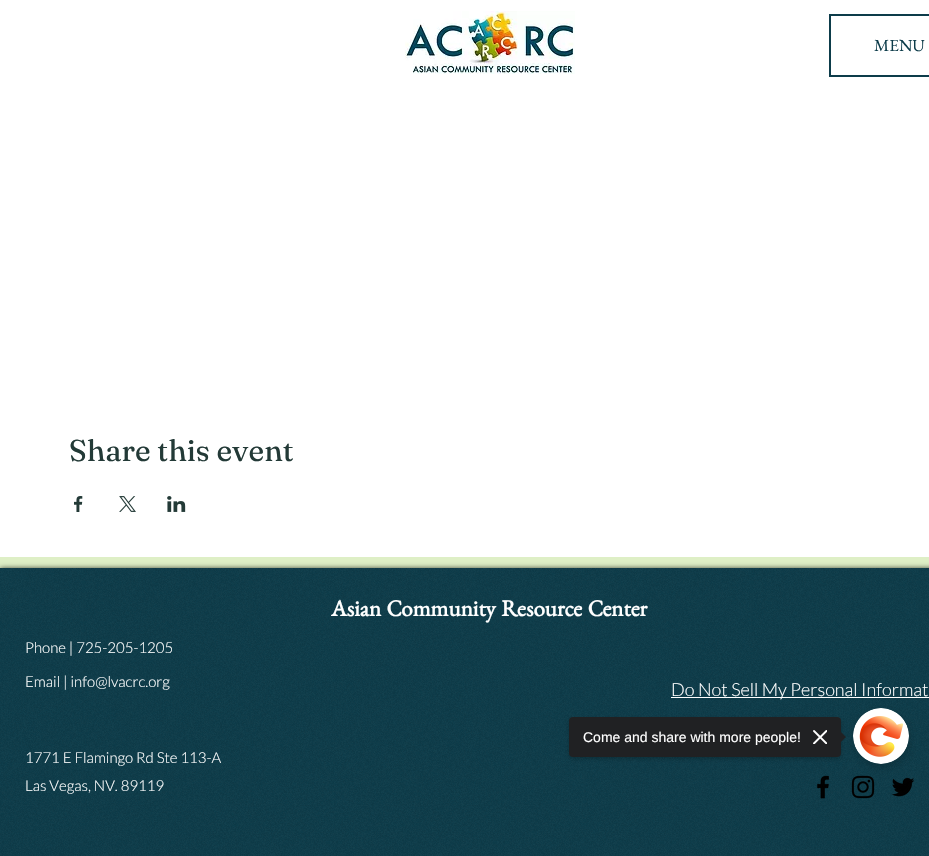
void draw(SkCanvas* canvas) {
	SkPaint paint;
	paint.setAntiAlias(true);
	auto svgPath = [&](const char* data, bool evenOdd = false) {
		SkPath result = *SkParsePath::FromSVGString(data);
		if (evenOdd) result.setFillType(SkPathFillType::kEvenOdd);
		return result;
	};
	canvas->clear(0xffdeefc6);
	paint.setColor(0xffffffff);
	canvas->drawRect(SkRect::MakeXYWH(0, 0, 929, 557), paint);
	canvas->drawImageRect(SkImages::DeferredFromEncodedData(SkData::MakeFromFileName("img1.png")), SkRect::MakeXYWH(405, 11, 170, 63), SkSamplingOptions());
	paint.setStroke(true);
	paint.setStrokeWidth(2);
	paint.setColor(0xff0d3c4a);
	canvas->drawRect(SkRect::MakeXYWH(830, 15, 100, 61), paint);
	SkFont f1(fontMgr->matchFamilyStyle("EB Garamond", SkFontStyle::Normal()), 17);
	f1.setSubpixel(true);
	paint.setStroke(false);
	canvas->drawString("MENU", 874, 51, f1, paint);
	SkFont f2(fontMgr->matchFamilyStyle("Fraunces", SkFontStyle::Normal()), 30);
	f2.setSubpixel(true);
	paint.setColor(0xff233a37);
	canvas->drawString("Share this event", 69, 461, f2, paint);
	canvas->drawImageRect(SkImages::DeferredFromEncodedData(SkData::MakeFromFileName("img2.png")), SkRect::MakeXYWH(74, 496, 9, 16), SkSamplingOptions());
	canvas->drawImageRect(SkImages::DeferredFromEncodedData(SkData::MakeFromFileName("img3.png")), SkRect::MakeXYWH(119, 496, 17, 16), SkSamplingOptions());
	canvas->drawImageRect(SkImages::DeferredFromEncodedData(SkData::MakeFromFileName("img4.png")), SkRect::MakeXYWH(167, 496, 19, 16), SkSamplingOptions());
	paint.setColor(0xb3000000);
	paint.setMaskFilter(SkMaskFilter::MakeBlur(kNormal_SkBlurStyle, 2.5));
	canvas->drawRect(SkRect::MakeXYWH(0, 568, 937, 288), paint);
	paint.setMaskFilter(nullptr);
	paint.setColor(0xff0d3c4a);
	canvas->drawRect(SkRect::MakeXYWH(0, 568, 929, 288), paint);
	canvas->drawImageRect(SkImages::DeferredFromEncodedData(SkData::MakeFromFileName("img5.png")), SkRect::MakeXYWH(0, 568, 929, 288), SkSamplingOptions());
	SkFont f3(fontMgr->matchFamilyStyle("Benne", SkFontStyle::Bold()), 23);
	f3.setSubpixel(true);
	paint.setColor(0xffffffff);
	canvas->drawString("Asian Community Resource Center", 331, 616, f3, paint);
	SkFont f4(fontMgr->matchFamilyStyle("Lato", SkFontStyle(300, SkFontStyle::kNormal_Width, SkFontStyle::kUpright_Slant)), 15);
	f4.setSubpixel(true);
	canvas->drawString("Phone | 725-205-1205", 25, 653, f4, paint);
	canvas->drawString("Email | info@lvacrc.org", 25, 687, f4, paint);
	canvas->drawRect(SkRect::MakeXYWH(671, 697, 258, 1), paint);
	SkFont f5(fontMgr->matchFamilyStyle("Lato", SkFontStyle(300, SkFontStyle::kNormal_Width, SkFontStyle::kUpright_Slant)), 18);
	f5.setSubpixel(true);
	canvas->drawString("Do Not Sell My Personal Informat", 671, 696, f5, paint);
	canvas->drawString("1771 E Flamingo Rd Ste 113-A", 25, 763, f4, paint);
	canvas->drawString("Las Vegas, NV. 89119", 25, 791, f4, paint);
	canvas->drawImageRect(SkImages::DeferredFromEncodedData(SkData::MakeFromFileName("img6.png")), SkRect::MakeXYWH(817, 775, 12, 24), SkSamplingOptions());
	canvas->drawImageRect(SkImages::DeferredFromEncodedData(SkData::MakeFromFileName("img7.png")), SkRect::MakeXYWH(851, 775, 24, 24), SkSamplingOptions());
	canvas->drawImageRect(SkImages::DeferredFromEncodedData(SkData::MakeFromFileName("img8.png")), SkRect::MakeXYWH(892, 777, 23, 20), SkSamplingOptions());
	paint.setColor(0x2b000000);
	paint.setMaskFilter(SkMaskFilter::MakeBlur(kNormal_SkBlurStyle, 4.5));
	canvas->drawRoundRect(SkRect::MakeXYWH(854, 712, 56, 56), 28, 28, paint);
	paint.setMaskFilter(nullptr);
	paint.setColor(0x38000000);
	paint.setMaskFilter(SkMaskFilter::MakeBlur(kNormal_SkBlurStyle, 2));
	canvas->drawRoundRect(SkRect::MakeXYWH(569, 719, 272, 40), 4, 4, paint);
	paint.setMaskFilter(nullptr);
	paint.setColor(0xff202123);
	canvas->drawRoundRect(SkRect::MakeXYWH(569, 717, 272, 40), 4, 4, paint);
	SkFont f6(fontMgr->matchFamilyStyle("Liberation Sans", SkFontStyle::Normal()), 14);
	f6.setSubpixel(true);
	paint.setColor(0xffffffff);
	canvas->drawString("Come and share with more people!", 583, 742, f6, paint);
	canvas->drawImageRect(SkImages::DeferredFromEncodedData(SkData::MakeFromFileName("img9.png")), SkRect::MakeXYWH(813, 730, 14, 14), SkSamplingOptions());
	paint.setColor(0xff202123);
	canvas->drawPath(svgPath("M839 744V730L846 737Z"), paint);
	canvas->drawImageRect(SkImages::DeferredFromEncodedData(SkData::MakeFromFileName("img10.png")), SkRect::MakeXYWH(853, 708, 56, 56), SkSamplingOptions());
}
